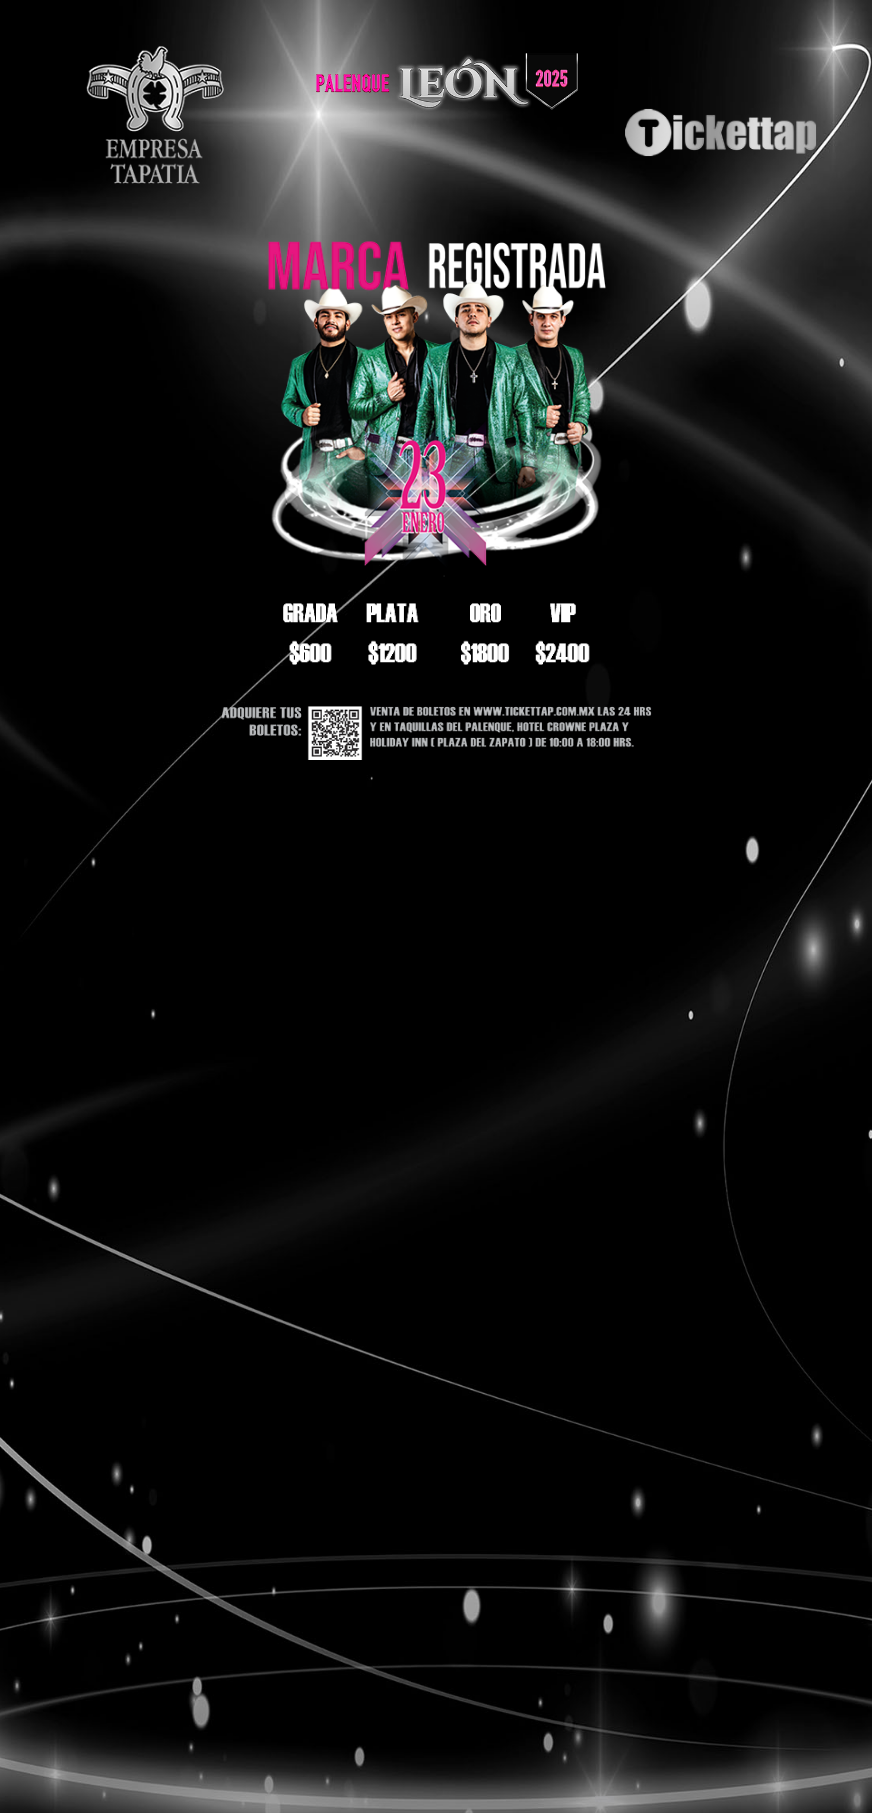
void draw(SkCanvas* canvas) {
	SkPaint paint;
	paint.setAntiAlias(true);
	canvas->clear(0xffffffff);
	canvas->drawImageRect(SkImages::DeferredFromEncodedData(SkData::MakeFromFileName("img1.png")), SkRect::MakeXYWH(0, 0, 872, 1813), SkSamplingOptions());
	canvas->drawImageRect(SkImages::DeferredFromEncodedData(SkData::MakeFromFileName("img2.png")), SkRect::MakeXYWH(86, 46, 138, 138), SkSamplingOptions());
	canvas->drawImageRect(SkImages::DeferredFromEncodedData(SkData::MakeFromFileName("img3.png")), SkRect::MakeXYWH(316, 53, 262, 58), SkSamplingOptions());
	canvas->drawImageRect(SkImages::DeferredFromEncodedData(SkData::MakeFromFileName("img4.png")), SkRect::MakeXYWH(625, 108, 192, 49), SkSamplingOptions());
	canvas->drawImageRect(SkImages::DeferredFromEncodedData(SkData::MakeFromFileName("img5.png")), SkRect::MakeXYWH(267, 241, 339, 336), SkSamplingOptions());
	canvas->drawImageRect(SkImages::DeferredFromEncodedData(SkData::MakeFromFileName("img6.png")), SkRect::MakeXYWH(283, 603, 55, 20), SkSamplingOptions());
	canvas->drawImageRect(SkImages::DeferredFromEncodedData(SkData::MakeFromFileName("img7.png")), SkRect::MakeXYWH(366, 603, 53, 20), SkSamplingOptions());
	canvas->drawImageRect(SkImages::DeferredFromEncodedData(SkData::MakeFromFileName("img8.png")), SkRect::MakeXYWH(470, 603, 31, 20), SkSamplingOptions());
	canvas->drawImageRect(SkImages::DeferredFromEncodedData(SkData::MakeFromFileName("img9.png")), SkRect::MakeXYWH(550, 603, 26, 20), SkSamplingOptions());
	canvas->drawImageRect(SkImages::DeferredFromEncodedData(SkData::MakeFromFileName("img10.png")), SkRect::MakeXYWH(289, 640, 43, 25), SkSamplingOptions());
	canvas->drawImageRect(SkImages::DeferredFromEncodedData(SkData::MakeFromFileName("img11.png")), SkRect::MakeXYWH(368, 640, 49, 25), SkSamplingOptions());
	canvas->drawImageRect(SkImages::DeferredFromEncodedData(SkData::MakeFromFileName("img12.png")), SkRect::MakeXYWH(461, 640, 49, 25), SkSamplingOptions());
	canvas->drawImageRect(SkImages::DeferredFromEncodedData(SkData::MakeFromFileName("img13.png")), SkRect::MakeXYWH(535, 640, 55, 25), SkSamplingOptions());
	canvas->drawImageRect(SkImages::DeferredFromEncodedData(SkData::MakeFromFileName("img14.png")), SkRect::MakeXYWH(221, 706, 431, 54), SkSamplingOptions());
}
